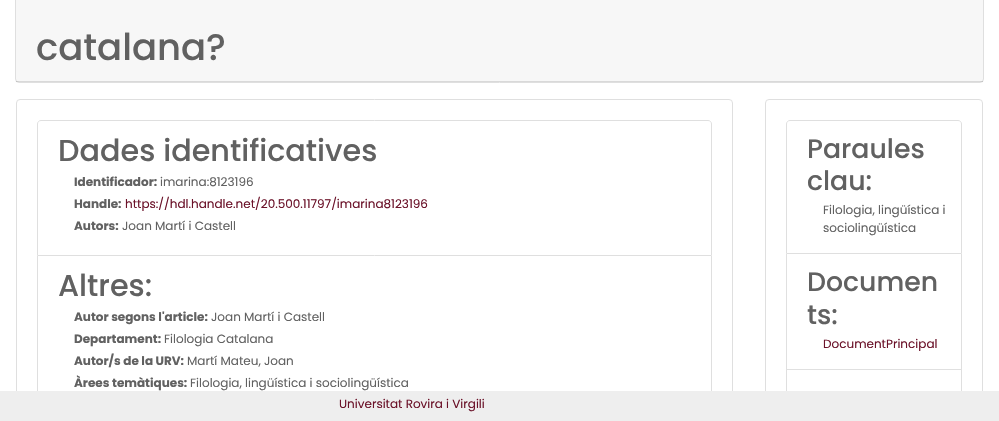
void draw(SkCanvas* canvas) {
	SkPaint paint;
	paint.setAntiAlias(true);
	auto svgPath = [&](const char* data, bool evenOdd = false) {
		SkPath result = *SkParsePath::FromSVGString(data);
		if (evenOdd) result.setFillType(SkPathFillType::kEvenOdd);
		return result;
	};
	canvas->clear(0xffffffff);
	paint.setStroke(true);
	paint.setStrokeWidth(1);
	paint.setColor(0xffdfdfdf);
	canvas->drawRoundRect(SkRect::MakeXYWH(15.5, -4.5, 968, 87), 3.5, 3.5, paint);
	paint.setStroke(false);
	paint.setColor(0x08000000);
	canvas->drawRect(SkRect::MakeXYWH(16, 0, 967, 82), paint);
	paint.setColor(0x1f000000);
	canvas->drawRect(SkRect::MakeXYWH(16, 81, 967, 1), paint);
	SkFont f1(fontMgr->matchFamilyStyle("Poppins", SkFontStyle(500, SkFontStyle::kNormal_Width, SkFontStyle::kUpright_Slant)), 37);
	f1.setSubpixel(true);
	paint.setColor(0xff616161);
	canvas->drawString("catalana?", 36, 60, f1, paint);
	paint.setStroke(true);
	paint.setColor(0xffdfdfdf);
	canvas->drawRoundRect(SkRect::MakeXYWH(16.5, 99.5, 716, 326), 3.5, 3.5, paint);
	canvas->drawPath(svgPath("M41 120.5H708C710 120.5 711.5 122 711.5 124V255.5H37.5V124C37.5 122 39 120.5 41 120.5Z"), paint);
	SkFont f2(fontMgr->matchFamilyStyle("Poppins", SkFontStyle(500, SkFontStyle::kNormal_Width, SkFontStyle::kUpright_Slant)), 30.25);
	f2.setSubpixel(true);
	paint.setStroke(false);
	paint.setColor(0xff616161);
	canvas->drawString("Dades identificatives", 58, 161, f2, paint);
	SkFont f3(fontMgr->matchFamilyStyle("Poppins", SkFontStyle::Bold()), 12);
	f3.setSubpixel(true);
	canvas->drawString("Identificador:", 74, 186, f3, paint);
	SkFont f4(fontMgr->matchFamilyStyle("Poppins", SkFontStyle::Normal()), 12);
	f4.setSubpixel(true);
	canvas->drawString("imarina:8123196", 160, 186, f4, paint);
	canvas->drawString("Handle:", 74, 208, f3, paint);
	paint.setColor(0xff6b1229);
	canvas->drawString("https://hdl.handle.net/20.500.11797/imarina8123196", 125, 208, f4, paint);
	paint.setColor(0xff616161);
	canvas->drawString("Autors:", 74, 230, f3, paint);
	canvas->drawString("Joan Martí i Castell", 122, 230, f4, paint);
	paint.setColor(0xffdfdfdf);
	canvas->drawPath(svgPath("M37 256H712V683C712 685 710 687 708 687H41C39 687 37 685 37 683ZM38 256H711V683C711 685 710 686 708 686H41C39 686 38 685 38 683Z", true), paint);
	paint.setColor(0xff616161);
	canvas->drawString("Altres:", 58, 296, f2, paint);
	canvas->drawString("Autor segons l'article:", 74, 321, f3, paint);
	canvas->drawString("Joan Martí i Castell", 211, 321, f4, paint);
	canvas->drawString("Departament:", 74, 343, f3, paint);
	canvas->drawString("Filologia Catalana", 164, 343, f4, paint);
	canvas->drawString("Autor/s de la URV:", 74, 365, f3, paint);
	canvas->drawString("Martí Mateu, Joan", 187, 365, f4, paint);
	canvas->drawString("Àrees temàtiques:", 74, 387, f3, paint);
	canvas->drawString("Filologia, lingüística i sociolingüística", 190, 387, f4, paint);
	paint.setStroke(true);
	paint.setColor(0xffdfdfdf);
	canvas->drawRoundRect(SkRect::MakeXYWH(765.5, 99.5, 217, 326), 3.5, 3.5, paint);
	canvas->drawPath(svgPath("M790 120.5H958C960 120.5 961.5 122 961.5 124V253.5H786.5V124C786.5 122 788 120.5 790 120.5Z"), paint);
	SkFont f5(fontMgr->matchFamilyStyle("Poppins", SkFontStyle(500, SkFontStyle::kNormal_Width, SkFontStyle::kUpright_Slant)), 26.75);
	f5.setSubpixel(true);
	paint.setStroke(false);
	paint.setColor(0xff616161);
	canvas->drawString("Paraules", 807, 158, f5, paint);
	canvas->drawString("clau:", 807, 190, f5, paint);
	canvas->drawString("Filologia, lingüística i", 823, 214, f4, paint);
	canvas->drawString("sociolingüística", 823, 232, f4, paint);
	paint.setColor(0xffdfdfdf);
	canvas->drawPath(svgPath("M962 254V370L961 369V254Z"), paint);
	paint.setColor(0x1f000000);
	canvas->drawPath(svgPath("M962 370H786L787 369H961Z"), paint);
	canvas->drawPath(svgPath("M786 370V254H787V369Z"), paint);
	paint.setColor(0xff616161);
	canvas->drawString("Documen", 807, 291, f5, paint);
	canvas->drawString("ts:", 807, 324, f5, paint);
	paint.setColor(0xff6b1229);
	canvas->drawString("DocumentPrincipal", 823, 348, f4, paint);
	paint.setColor(0xffdfdfdf);
	canvas->drawPath(svgPath("M786 370H962V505C962 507 960 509 958 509H790C788 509 786 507 786 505ZM787 370H961V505C961 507 960 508 958 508H790C788 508 787 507 787 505Z", true), paint);
	paint.setColor(0xffeeeeee);
	canvas->drawRect(SkRect::MakeXYWH(0, 391, 999, 30), paint);
	paint.setColor(0xff6b1229);
	canvas->drawString("Universitat Rovira i Virgili", 339, 408, f4, paint);
}
